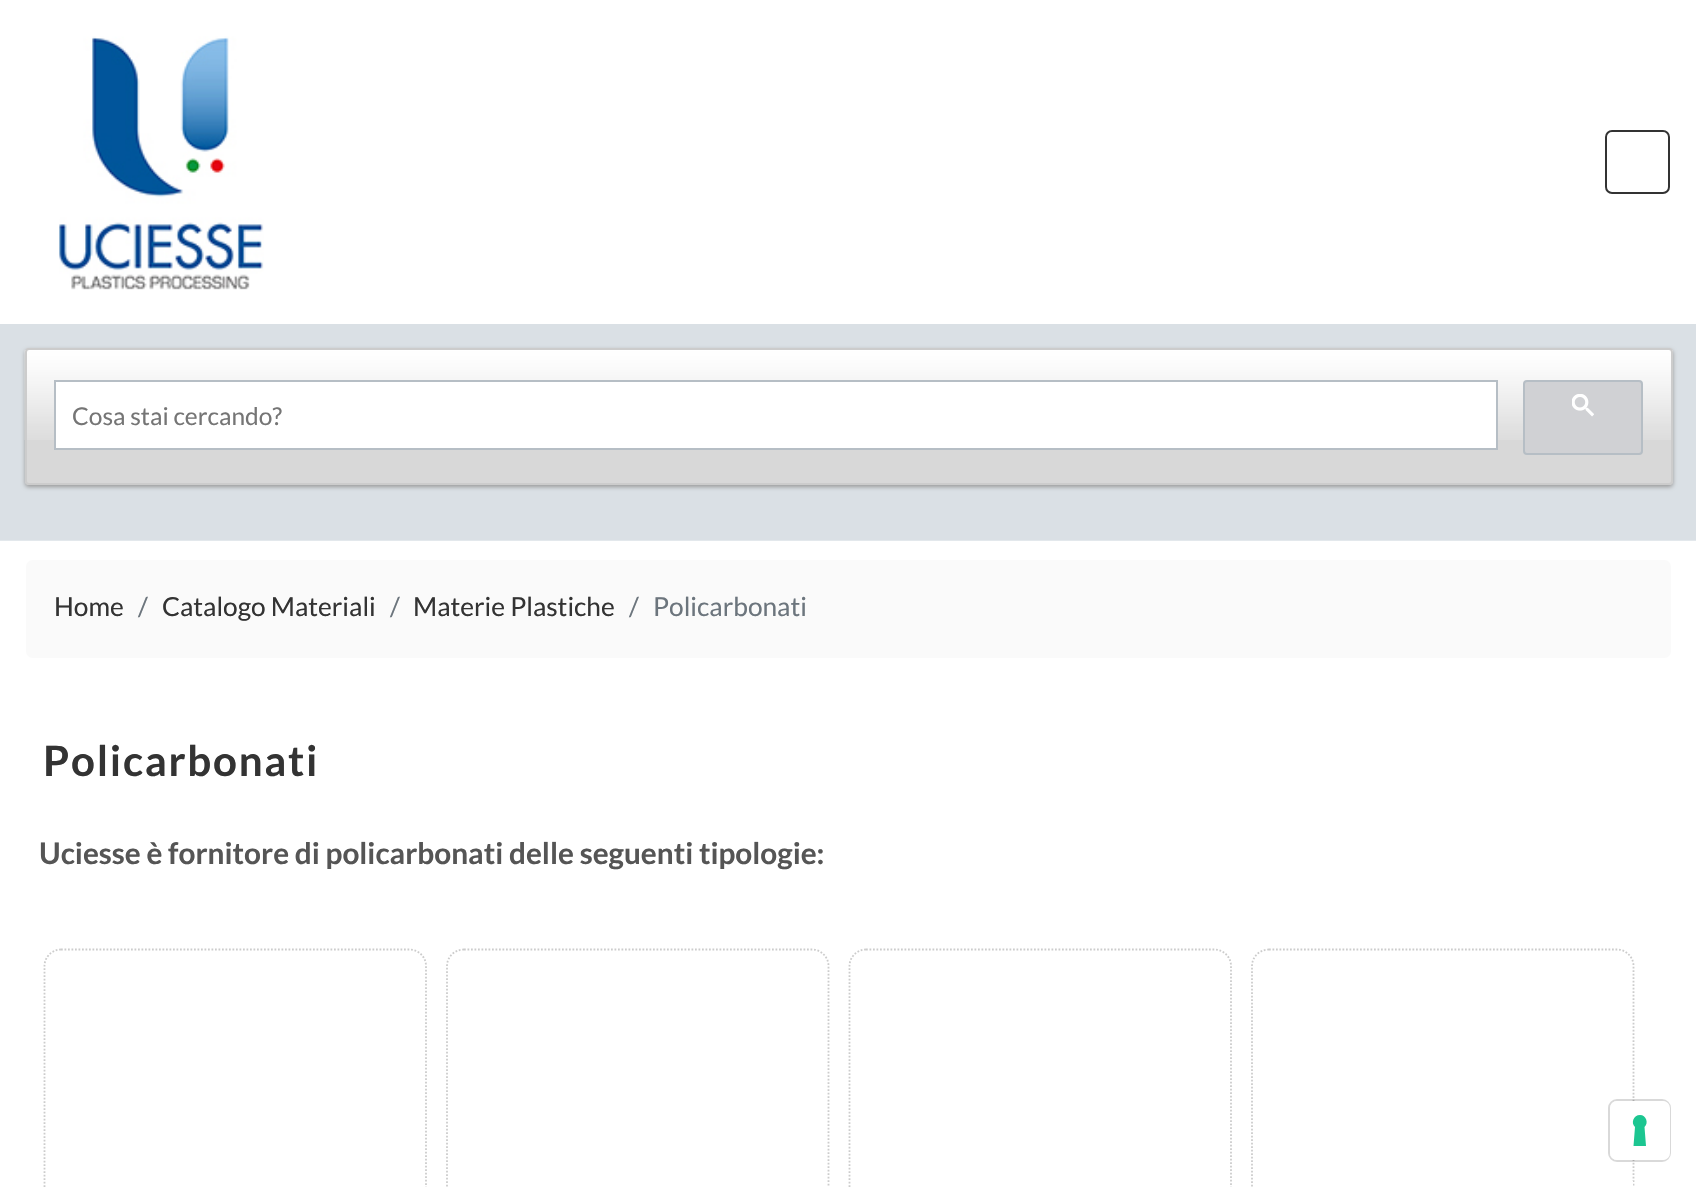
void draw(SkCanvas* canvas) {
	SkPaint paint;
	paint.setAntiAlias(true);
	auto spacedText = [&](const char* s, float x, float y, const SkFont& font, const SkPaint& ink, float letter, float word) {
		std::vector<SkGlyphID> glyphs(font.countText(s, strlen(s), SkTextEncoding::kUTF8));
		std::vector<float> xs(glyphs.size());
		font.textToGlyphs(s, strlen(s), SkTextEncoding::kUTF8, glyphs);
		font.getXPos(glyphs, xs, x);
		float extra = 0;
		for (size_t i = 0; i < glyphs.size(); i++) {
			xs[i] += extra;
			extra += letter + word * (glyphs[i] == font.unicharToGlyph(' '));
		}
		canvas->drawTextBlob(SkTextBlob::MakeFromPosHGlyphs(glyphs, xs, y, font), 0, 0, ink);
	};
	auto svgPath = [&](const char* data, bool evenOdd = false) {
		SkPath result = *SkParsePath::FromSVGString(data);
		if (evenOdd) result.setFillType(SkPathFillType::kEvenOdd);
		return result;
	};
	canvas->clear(0xffffffff);
	canvas->drawImageRect(SkImages::DeferredFromEncodedData(SkData::MakeFromFileName("img1.png")), SkRect::MakeXYWH(59, 36, 205, 254), SkSamplingOptions());
	paint.setStroke(true);
	paint.setStrokeWidth(2);
	paint.setColor(0xff333333);
	canvas->drawRoundRect(SkRect::MakeXYWH(1606, 131, 63, 62), 6, 6, paint);
	paint.setStroke(false);
	paint.setColor(0xffdae0e5);
	canvas->drawRect(SkRect::MakeXYWH(0, 324, 1696, 216), paint);
	paint.setColor(0xff999999);
	paint.setMaskFilter(SkMaskFilter::MakeBlur(kNormal_SkBlurStyle, 2));
	canvas->drawRoundRect(SkRect::MakeXYWH(25, 350, 1648, 137), 4, 4, paint);
	paint.setMaskFilter(nullptr);
	paint.setColor(0xffd8d8d8);
	canvas->drawRoundRect(SkRect::MakeXYWH(25, 348, 1648, 137), 4, 4, paint);
	canvas->drawImageRect(SkImages::DeferredFromEncodedData(SkData::MakeFromFileName("img2.png")), SkRect::MakeXYWH(24, 350, 1649, 90), SkSamplingOptions());
	paint.setStroke(true);
	paint.setColor(0xffcccccc);
	canvas->drawRoundRect(SkRect::MakeXYWH(26, 349, 1646, 135), 3, 3, paint);
	paint.setStroke(false);
	paint.setColor(0xffffffff);
	canvas->drawRect(SkRect::MakeXYWH(55, 381, 1442, 68), paint);
	paint.setStroke(true);
	paint.setColor(0xffb6bec5);
	canvas->drawRect(SkRect::MakeXYWH(55, 381, 1442, 68), paint);
	SkFont f1(fontMgr->matchFamilyStyle("Lato", SkFontStyle::Normal()), 24.5);
	f1.setSubpixel(true);
	paint.setStroke(false);
	paint.setColor(0xff757575);
	canvas->drawString("Cosa stai cercando?", 72, 425, f1, paint);
	paint.setColor(0xffd0d1d4);
	canvas->drawRoundRect(SkRect::MakeXYWH(1524, 381, 118, 73), 3, 3, paint);
	paint.setStroke(true);
	paint.setColor(0xffb6bec5);
	canvas->drawRoundRect(SkRect::MakeXYWH(1524, 381, 118, 73), 3, 3, paint);
	canvas->drawImageRect(SkImages::DeferredFromEncodedData(SkData::MakeFromFileName("img3.png")), SkRect::MakeXYWH(1572, 394, 22, 23), SkSamplingOptions());
	paint.setStroke(false);
	paint.setColor(0xffe3e8ec);
	canvas->drawRect(SkRect::MakeXYWH(0, 540, 1696, 1), paint);
	paint.setColor(0xfffafafa);
	canvas->drawRoundRect(SkRect::MakeXYWH(26, 560, 1645, 98), 7, 7, paint);
	SkFont f2(fontMgr->matchFamilyStyle("Lato", SkFontStyle::Normal()), 26.25);
	f2.setSubpixel(true);
	paint.setColor(0xff333333);
	canvas->drawString("Home", 54, 616, f2, paint);
	paint.setColor(0xff6c757d);
	canvas->drawString("/", 138, 616, f2, paint);
	paint.setColor(0xff333333);
	canvas->drawString("Catalogo Materiali", 162, 616, f2, paint);
	paint.setColor(0xff6c757d);
	canvas->drawString("/", 390, 616, f2, paint);
	paint.setColor(0xff333333);
	canvas->drawString("Materie Plastiche", 413, 616, f2, paint);
	paint.setColor(0xff6c757d);
	canvas->drawString("/", 629, 616, f2, paint);
	canvas->drawString("Policarbonati", 653, 616, f2, paint);
	SkFont f3(fontMgr->matchFamilyStyle("Lato", SkFontStyle::Bold()), 42);
	f3.setSubpixel(true);
	paint.setColor(0xff333333);
	spacedText("Policarbonati", 43, 776, f3, paint, 1.75, 0);
	SkFont f4(fontMgr->matchFamilyStyle("Lato", SkFontStyle::Bold()), 29.75);
	f4.setSubpixel(true);
	paint.setColor(0xff555555);
	canvas->drawString("Uciesse è fornitore di policarbonati delle seguenti tipologie:", 39, 864, f4, paint);
	paint.setStroke(true);
	paint.setStrokeWidth(1.8);
	paint.setColor(0xffcccccc);
	paint.setPathEffect(SkDashPathEffect::Make({{1.75f, 1.75f}}, 0));
	canvas->drawPath(svgPath("M61 949.5H409.5C418.5 949.5 426 957 426 966V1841C426 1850 418.5 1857.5 409.5 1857.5H61C52 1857.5 44.5 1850 44.5 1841V966C44.5 957 52 949.5 61 949.5Z"), paint);
	paint.setPathEffect(nullptr);
	paint.setPathEffect(SkDashPathEffect::Make({{1.75f, 1.75f}}, 0));
	canvas->drawPath(svgPath("M464 949.5H812C821 949.5 828.5 957 828.5 966V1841C828.5 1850 821 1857.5 812 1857.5H464C454.5 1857.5 447 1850 447 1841V966C447 957 454.5 949.5 464 949.5Z"), paint);
	paint.setPathEffect(nullptr);
	paint.setPathEffect(SkDashPathEffect::Make({{1.75f, 1.75f}}, 0));
	canvas->drawPath(svgPath("M866 949.5H1214.5C1223.5 949.5 1231 957 1231 966V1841C1231 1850 1223.5 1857.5 1214.5 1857.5H866C857 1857.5 849.5 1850 849.5 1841V966C849.5 957 857 949.5 866 949.5Z"), paint);
	paint.setPathEffect(nullptr);
	paint.setPathEffect(SkDashPathEffect::Make({{1.75f, 1.75f}}, 0));
	canvas->drawPath(svgPath("M1269 949.5H1617C1626 949.5 1633.5 957 1633.5 966V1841C1633.5 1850 1626 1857.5 1617 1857.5H1269C1259.5 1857.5 1252 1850 1252 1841V966C1252 957 1259.5 949.5 1269 949.5Z"), paint);
	paint.setPathEffect(nullptr);
	paint.setStrokeWidth(14);
	paint.setColor(0xffffffff);
	canvas->drawRect(SkRect::MakeXYWH(1260, 1188, 366, 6), paint);
	paint.setStrokeWidth(2);
	paint.setColor(0x26000000);
	canvas->drawRoundRect(SkRect::MakeXYWH(1609, 1100, 61, 61), 8, 8, paint);
	paint.setStroke(false);
	paint.setColor(0xffffffff);
	canvas->drawRoundRect(SkRect::MakeXYWH(1610, 1101, 60, 59), 7, 7, paint);
	paint.setColor(0xff1cc691);
	canvas->drawPath(svgPath("M1640 1115C1646 1115 1649 1123 1644.5 1127L1646 1146H1633.5L1635 1127C1630.5 1123 1633.5 1115 1640 1115Z", true), paint);
}
